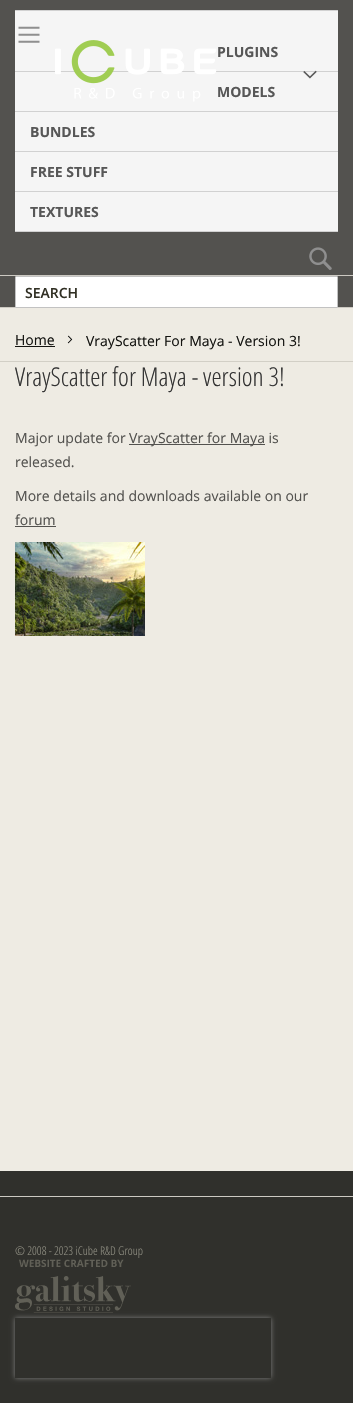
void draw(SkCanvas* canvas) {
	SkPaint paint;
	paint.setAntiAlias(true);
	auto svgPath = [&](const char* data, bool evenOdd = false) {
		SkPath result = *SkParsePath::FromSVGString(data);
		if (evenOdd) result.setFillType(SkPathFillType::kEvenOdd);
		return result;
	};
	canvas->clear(0xffeeebe3);
	paint.setColor(0xff53524f);
	canvas->drawRect(SkRect::MakeXYWH(0, 0, 353, 307), paint);
	paint.setColor(0xffccc9c2);
	canvas->drawRect(SkRect::MakeXYWH(0, 307, 353, 1), paint);
	paint.setColor(0xfff5f5f5);
	canvas->drawRect(SkRect::MakeXYWH(15, 11, 323, 220), paint);
	canvas->drawImageRect(SkImages::DeferredFromEncodedData(SkData::MakeFromFileName("img1.png")), SkRect::MakeXYWH(18, 26, 22, 17), SkSamplingOptions());
	paint.setColor(0xffd1d1d1);
	canvas->drawRect(SkRect::MakeXYWH(15, 71, 323, 1), paint);
	canvas->drawImageRect(SkImages::DeferredFromEncodedData(SkData::MakeFromFileName("img2.png")), SkRect::MakeXYWH(55, 40, 162, 62), SkSamplingOptions());
	canvas->drawRect(SkRect::MakeXYWH(15, 10, 323, 1), paint);
	SkFont f1(fontMgr->matchFamilyStyle("Open Sans", SkFontStyle::Bold()), 14);
	f1.setSubpixel(true);
	paint.setColor(0xff575757);
	canvas->drawString("PLUGINS", 217, 57, f1, paint);
	canvas->drawImageRect(SkImages::DeferredFromEncodedData(SkData::MakeFromFileName("img3.png")), SkRect::MakeXYWH(303, 70, 14, 9), SkSamplingOptions());
	canvas->drawString("MODELS", 217, 97, f1, paint);
	paint.setColor(0xffd1d1d1);
	canvas->drawRect(SkRect::MakeXYWH(15, 111, 323, 1), paint);
	paint.setColor(0xff575757);
	canvas->drawString("BUNDLES", 30, 137, f1, paint);
	paint.setColor(0xffd1d1d1);
	canvas->drawRect(SkRect::MakeXYWH(15, 151, 323, 1), paint);
	paint.setColor(0xff575757);
	canvas->drawString("FREE STUFF", 30, 177, f1, paint);
	paint.setColor(0xffd1d1d1);
	canvas->drawRect(SkRect::MakeXYWH(15, 191, 323, 1), paint);
	canvas->drawRect(SkRect::MakeXYWH(15, 231, 323, 1), paint);
	paint.setColor(0xff575757);
	canvas->drawString("TEXTURES", 30, 217, f1, paint);
	canvas->drawImageRect(SkImages::DeferredFromEncodedData(SkData::MakeFromFileName("img4.png")), SkRect::MakeXYWH(309, 247, 23, 23), SkSamplingOptions());
	paint.setColor(0xffccc9c2);
	canvas->drawRect(SkRect::MakeXYWH(0, 275, 353, 1), paint);
	paint.setColor(0xffffffff);
	canvas->drawRoundRect(SkRect::MakeXYWH(15.5, 276.5, 322, 31), 0.5, 0.5, paint);
	paint.setStroke(true);
	paint.setStrokeWidth(1);
	paint.setColor(0xffc2c2c2);
	canvas->drawRoundRect(SkRect::MakeXYWH(15.5, 276.5, 322, 31), 0.5, 0.5, paint);
	SkFont f2(fontMgr->matchFamilyStyle("Open Sans", SkFontStyle(600, SkFontStyle::kNormal_Width, SkFontStyle::kUpright_Slant)), 14);
	f2.setSubpixel(true);
	paint.setStroke(false);
	paint.setColor(0xff313024);
	canvas->drawString("SEARCH", 25, 298, f2, paint);
	paint.setColor(0xffd2cfc6);
	canvas->drawRect(SkRect::MakeXYWH(0, 361, 353, 1), paint);
	SkFont f3(fontMgr->matchFamilyStyle("Open Sans", SkFontStyle::Normal()), 14);
	f3.setSubpixel(true);
	paint.setColor(0xff141411);
	canvas->drawString("Home", 15, 345, f3, paint);
	canvas->drawRect(SkRect::MakeXYWH(15, 346, 40, 1), paint);
	canvas->drawImageRect(SkImages::DeferredFromEncodedData(SkData::MakeFromFileName("img5.png")), SkRect::MakeXYWH(67, 335, 6, 9), SkSamplingOptions());
	canvas->drawString("VrayScatter For Maya - Version 3!", 86, 346, f3, paint);
	SkFont f4(fontMgr->matchFamilyStyle("Open Sans", SkFontStyle(300, SkFontStyle::kNormal_Width, SkFontStyle::kUpright_Slant)), 26);
	f4.setSubpixel(true);
	paint.setColor(0xff333333);
	canvas->drawString("VrayScatter for Maya - version 3!", 15, 386, f4, paint);
	paint.setColor(0xff53524f);
	canvas->drawString("Major update for", 15, 443, f3, paint);
	canvas->drawRect(SkRect::MakeXYWH(129, 444, 136, 1), paint);
	canvas->drawString("VrayScatter for Maya is", 129, 443, f3, paint);
	canvas->drawString("released.", 15, 467, f3, paint);
	canvas->drawString("More details and downloads available on our", 15, 501, f3, paint);
	canvas->drawString("forum", 15, 525, f3, paint);
	canvas->drawRect(SkRect::MakeXYWH(15, 526, 41, 1), paint);
	canvas->drawImageRect(SkImages::DeferredFromEncodedData(SkData::MakeFromFileName("img6.png")), SkRect::MakeXYWH(15, 542, 130, 94), SkSamplingOptions());
	paint.setColor(0xff30302c);
	canvas->drawRect(SkRect::MakeXYWH(0, 1171, 353, 232), paint);
	paint.setColor(0xffccc9c2);
	canvas->drawRect(SkRect::MakeXYWH(0, 1196, 353, 1), paint);
	SkFont f5(fontMgr->matchFamilyStyle("Open Sans", SkFontStyle(300, SkFontStyle::kNormal_Width, SkFontStyle::kUpright_Slant)), 12);
	f5.setSubpixel(true);
	paint.setColor(0xff8e8d81);
	canvas->drawString("© 2008 - 2023 iCube R&D Group", 15, 1255, f5, paint);
	canvas->save();
	canvas->clipPath(svgPath("M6 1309H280V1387H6ZM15 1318H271V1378H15Z", true), true);
	paint.setColor(0xff808080);
	paint.setMaskFilter(SkMaskFilter::MakeBlur(kNormal_SkBlurStyle, 2.5));
	canvas->drawRect(SkRect::MakeXYWH(15, 1318, 256, 60), paint);
	paint.setMaskFilter(nullptr);
	canvas->restore();
	canvas->drawImageRect(SkImages::DeferredFromEncodedData(SkData::MakeFromFileName("img7.png")), SkRect::MakeXYWH(15, 1259, 116, 54), SkSamplingOptions());
}
